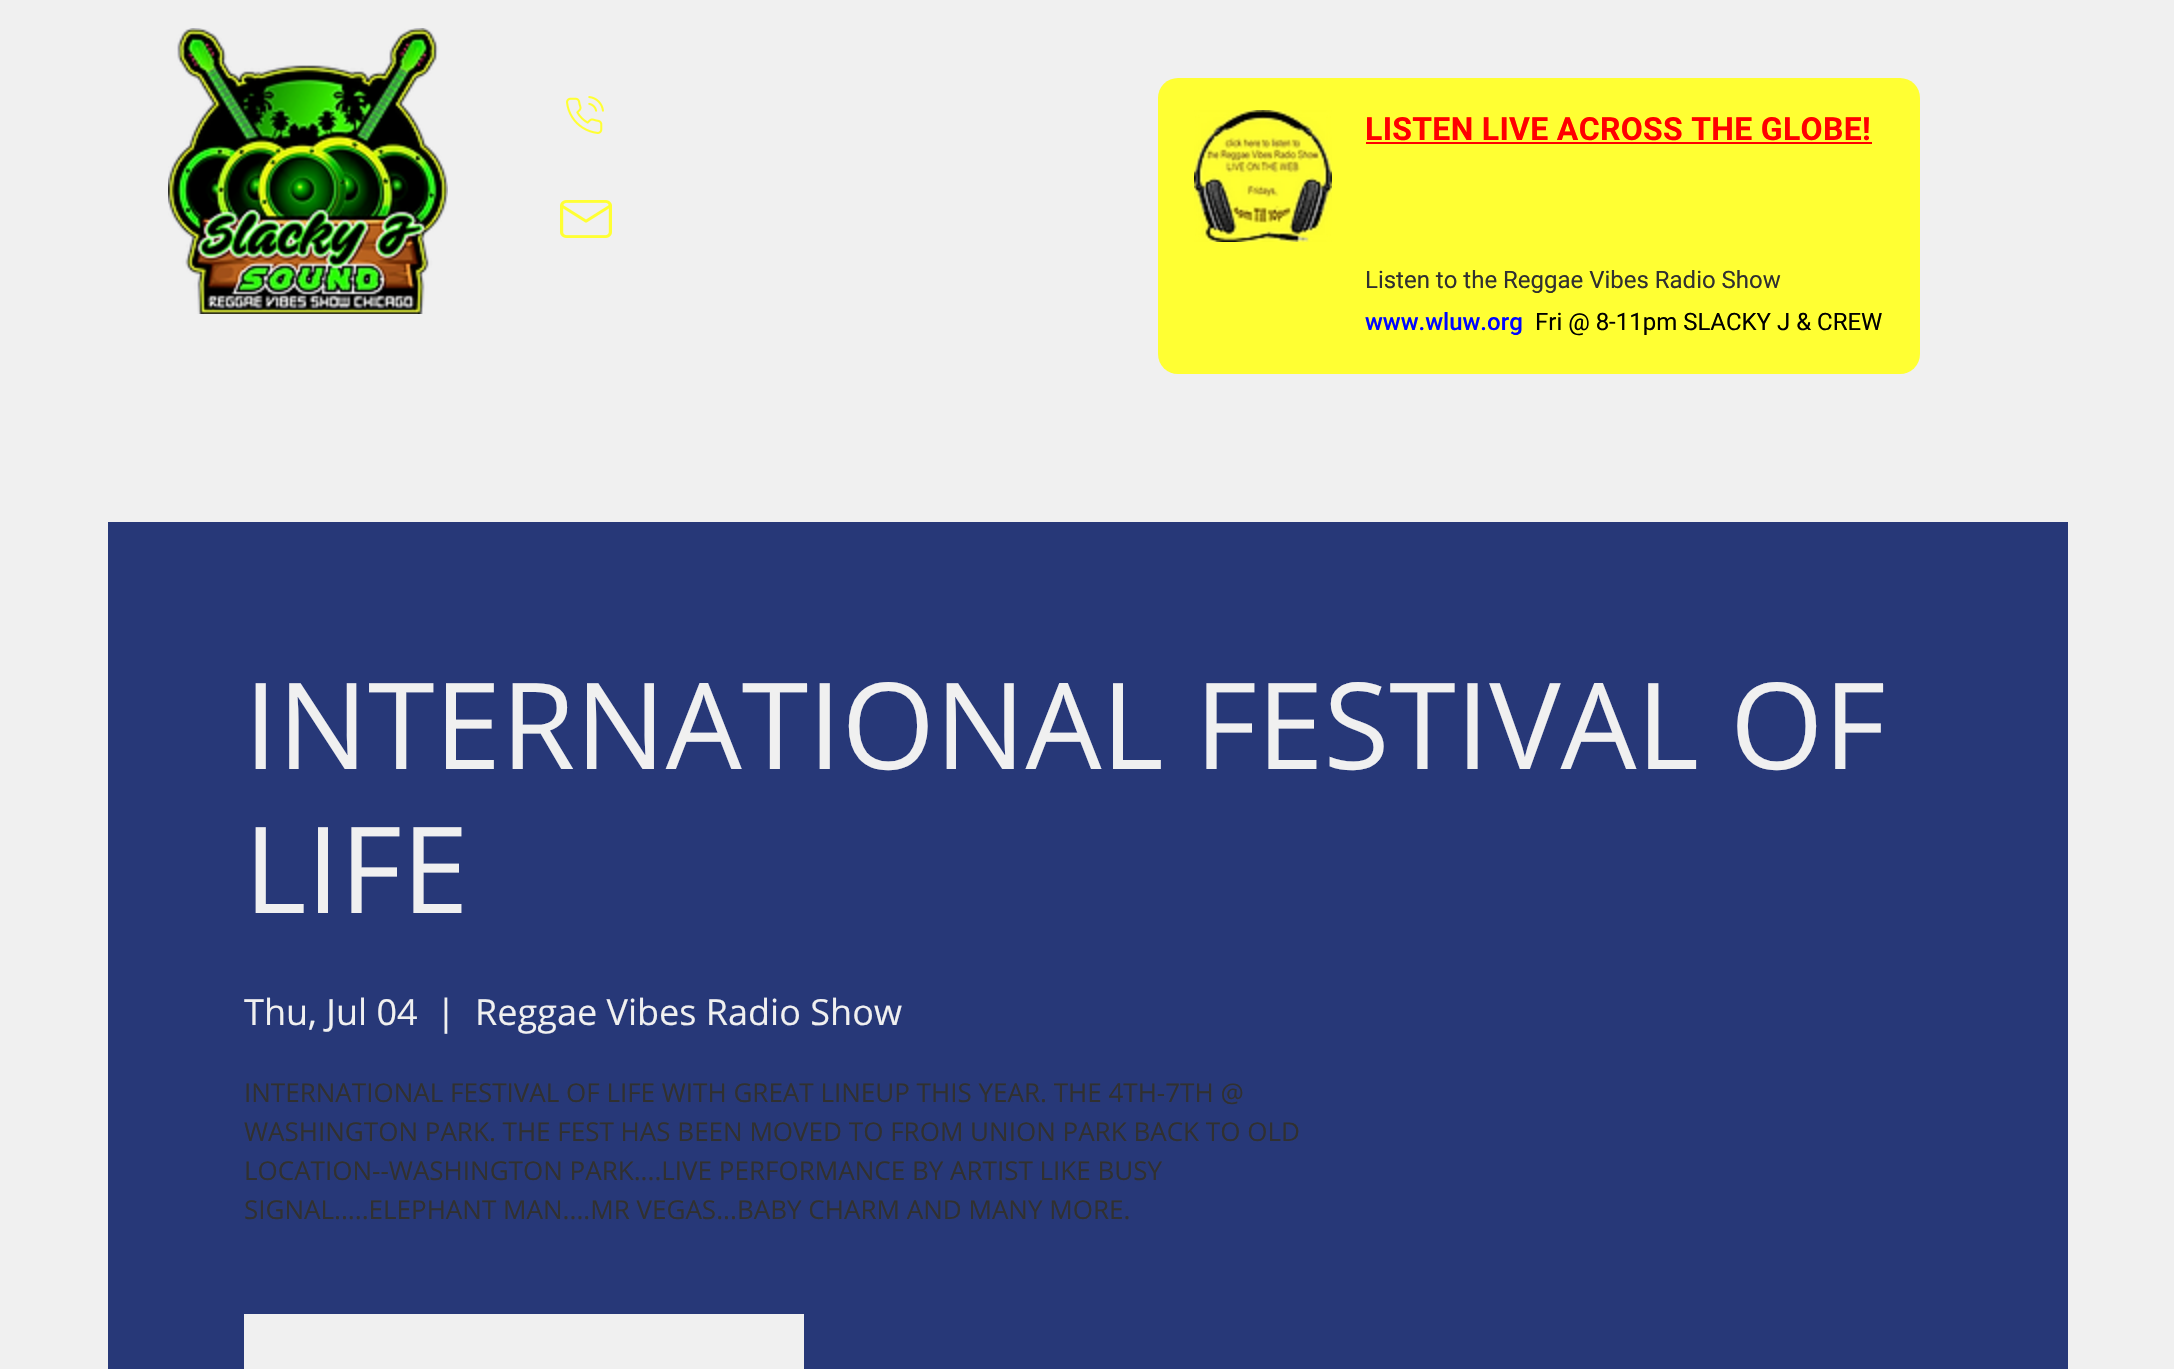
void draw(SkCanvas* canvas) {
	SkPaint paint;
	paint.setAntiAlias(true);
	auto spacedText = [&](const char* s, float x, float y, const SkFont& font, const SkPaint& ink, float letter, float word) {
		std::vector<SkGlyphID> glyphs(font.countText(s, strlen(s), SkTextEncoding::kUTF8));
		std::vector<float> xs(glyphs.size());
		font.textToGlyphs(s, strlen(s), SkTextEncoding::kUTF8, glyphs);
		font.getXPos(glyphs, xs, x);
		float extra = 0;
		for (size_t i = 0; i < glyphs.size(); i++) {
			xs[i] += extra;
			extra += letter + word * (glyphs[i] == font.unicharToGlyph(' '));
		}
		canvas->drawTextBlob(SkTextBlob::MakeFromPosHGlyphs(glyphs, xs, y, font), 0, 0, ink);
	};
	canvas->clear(0xfff0f0f0);
	canvas->drawImageRect(SkImages::DeferredFromEncodedData(SkData::MakeFromFileName("img1.png")), SkRect::MakeXYWH(168, 28, 280, 286), SkSamplingOptions());
	canvas->drawImageRect(SkImages::DeferredFromEncodedData(SkData::MakeFromFileName("img2.png")), SkRect::MakeXYWH(566, 96, 38, 38), SkSamplingOptions());
	canvas->drawImageRect(SkImages::DeferredFromEncodedData(SkData::MakeFromFileName("img3.png")), SkRect::MakeXYWH(560, 200, 52, 38), SkSamplingOptions());
	paint.setColor(0xffffff33);
	canvas->drawRoundRect(SkRect::MakeXYWH(1158, 78, 762, 296), 20, 20, paint);
	canvas->drawImageRect(SkImages::DeferredFromEncodedData(SkData::MakeFromFileName("img4.png")), SkRect::MakeXYWH(1194, 110, 138, 132), SkSamplingOptions());
	SkFont f1(fontMgr->matchFamilyStyle("Roboto", SkFontStyle::Bold()), 32);
	f1.setSubpixel(true);
	paint.setColor(0xffff0000);
	spacedText("LISTEN LIVE ACROSS THE GLOBE!", 1365, 140, f1, paint, 0.3, 0);
	canvas->drawRect(SkRect::MakeXYWH(1366, 142, 506, 2), paint);
	SkFont f2(fontMgr->matchFamilyStyle("Roboto", SkFontStyle::Normal()), 24);
	f2.setSubpixel(true);
	paint.setColor(0xff303030);
	canvas->drawString("Listen to the Reggae Vibes Radio Show", 1365, 288, f2, paint);
	SkFont f3(fontMgr->matchFamilyStyle("Roboto", SkFontStyle(500, SkFontStyle::kNormal_Width, SkFontStyle::kUpright_Slant)), 24);
	f3.setSubpixel(true);
	paint.setColor(0xff0006ff);
	canvas->drawString("www.wluw.org", 1365, 330, f3, paint);
	paint.setColor(0xff000000);
	canvas->drawString("Fri @ 8-11pm SLACKY J & CREW", 1535, 330, f2, paint);
	paint.setColor(0xff273878);
	canvas->drawRect(SkRect::MakeXYWH(108, 522, 1960, 847), paint);
	SkFont f4(fontMgr->matchFamilyStyle("Open Sans", SkFontStyle::Normal()), 120);
	f4.setSubpixel(true);
	paint.setColor(0xfff0f0f0);
	canvas->drawString("INTERNATIONAL FESTIVAL OF", 244, 769, f4, paint);
	canvas->drawString("LIFE", 244, 913, f4, paint);
	SkFont f5(fontMgr->matchFamilyStyle("Open Sans", SkFontStyle::Normal()), 36);
	f5.setSubpixel(true);
	canvas->drawString("Thu, Jul 04", 244, 1025, f5, paint);
	canvas->drawString("|", 436, 1025, f5, paint);
	canvas->drawString("Reggae Vibes Radio Show", 475, 1025, f5, paint);
	SkFont f6(fontMgr->matchFamilyStyle("Open Sans", SkFontStyle::Normal()), 26);
	f6.setSubpixel(true);
	paint.setColor(0xff303030);
	canvas->drawString("INTERNATIONAL FESTIVAL OF LIFE WITH GREAT LINEUP THIS YEAR. THE 4TH-7TH @", 244, 1102, f6, paint);
	canvas->drawString("WASHINGTON PARK. THE FEST HAS BEEN MOVED TO FROM UNION PARK BACK TO OLD", 244, 1141, f6, paint);
	canvas->drawString("LOCATION--WASHINGTON PARK....LIVE PERFORMANCE BY ARTIST LIKE BUSY", 244, 1180, f6, paint);
	canvas->drawString("SIGNAL.....ELEPHANT MAN....MR VEGAS...BABY CHARM AND MANY MORE.", 244, 1219, f6, paint);
	paint.setColor(0xfff0f0f0);
	canvas->drawRect(SkRect::MakeXYWH(244, 1314, 560, 55), paint);
}
